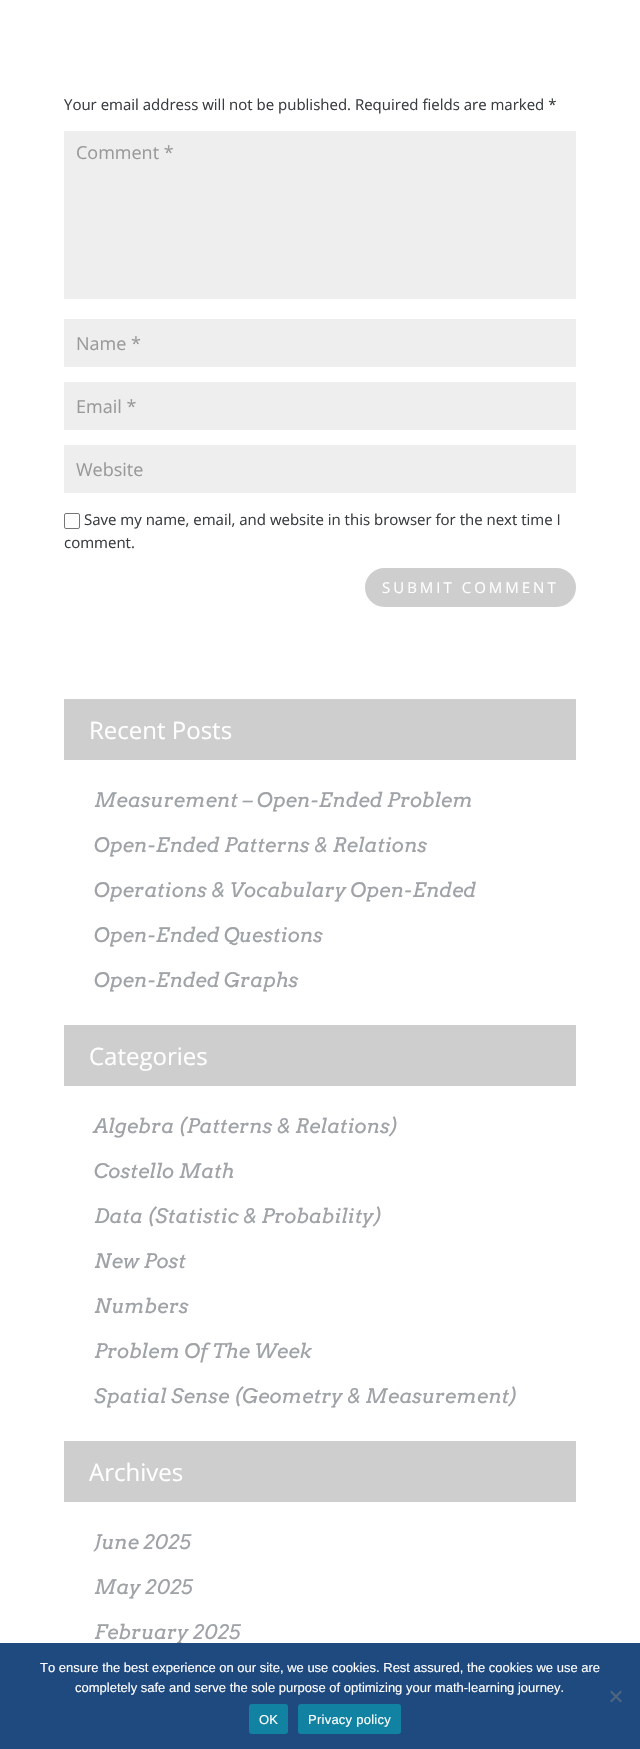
void draw(SkCanvas* canvas) {
	SkPaint paint;
	paint.setAntiAlias(true);
	auto spacedText = [&](const char* s, float x, float y, const SkFont& font, const SkPaint& ink, float letter, float word) {
		std::vector<SkGlyphID> glyphs(font.countText(s, strlen(s), SkTextEncoding::kUTF8));
		std::vector<float> xs(glyphs.size());
		font.textToGlyphs(s, strlen(s), SkTextEncoding::kUTF8, glyphs);
		font.getXPos(glyphs, xs, x);
		float extra = 0;
		for (size_t i = 0; i < glyphs.size(); i++) {
			xs[i] += extra;
			extra += letter + word * (glyphs[i] == font.unicharToGlyph(' '));
		}
		canvas->drawTextBlob(SkTextBlob::MakeFromPosHGlyphs(glyphs, xs, y, font), 0, 0, ink);
	};
	auto svgPath = [&](const char* data, bool evenOdd = false) {
		SkPath result = *SkParsePath::FromSVGString(data);
		if (evenOdd) result.setFillType(SkPathFillType::kEvenOdd);
		return result;
	};
	canvas->clear(0xffffffff);
	SkFont f1(fontMgr->matchFamilyStyle("Open Sans", SkFontStyle::Normal()), 15);
	f1.setSubpixel(true);
	paint.setColor(0xff393d3f);
	canvas->drawString("Your email address will not be published. Required fields are marked *", 64, 110, f1, paint);
	paint.setColor(0xffeeeeee);
	canvas->drawRect(SkRect::MakeXYWH(64, 131, 512, 168), paint);
	SkFont f2(fontMgr->matchFamilyStyle("Open Sans", SkFontStyle::Normal()), 18);
	f2.setSubpixel(true);
	paint.setColor(0xff999999);
	canvas->drawString("Comment *", 76, 159, f2, paint);
	paint.setColor(0xffeeeeee);
	canvas->drawRect(SkRect::MakeXYWH(64, 319, 512, 48), paint);
	paint.setColor(0xff999999);
	canvas->drawString("Name *", 76, 350, f2, paint);
	paint.setColor(0xffeeeeee);
	canvas->drawRect(SkRect::MakeXYWH(64, 382, 512, 48), paint);
	paint.setColor(0xff999999);
	canvas->drawString("Email *", 76, 413, f2, paint);
	paint.setColor(0xffeeeeee);
	canvas->drawRect(SkRect::MakeXYWH(64, 445, 512, 48), paint);
	paint.setColor(0xff999999);
	canvas->drawString("Website", 76, 476, f2, paint);
	paint.setStroke(true);
	paint.setStrokeWidth(1);
	paint.setColor(0xff767676);
	canvas->drawRoundRect(SkRect::MakeXYWH(64.5, 513.5, 15, 15), 1.5, 1.5, paint);
	paint.setStroke(false);
	paint.setColor(0xff393d3f);
	canvas->drawString("Save my name, email, and website in this browser for the next time I", 84, 525, f1, paint);
	canvas->drawString("comment.", 64, 548, f1, paint);
	paint.setColor(0xffcecece);
	canvas->drawRoundRect(SkRect::MakeXYWH(366, 569, 209, 37), 18.5, 18.5, paint);
	paint.setStroke(true);
	paint.setStrokeWidth(2);
	canvas->drawRoundRect(SkRect::MakeXYWH(366, 569, 209, 37), 18.5, 18.5, paint);
	paint.setStroke(false);
	paint.setColor(0xffffffff);
	spacedText("SUBMIT COMMENT", 382, 593, f1, paint, 3, 0);
	paint.setColor(0xffcecece);
	canvas->drawRect(SkRect::MakeXYWH(64, 699, 512, 61), paint);
	SkFont f3(fontMgr->matchFamilyStyle("Open Sans", SkFontStyle::Normal()), 24);
	f3.setSubpixel(true);
	paint.setColor(0xffffffff);
	canvas->drawString("Recent Posts", 89, 739, f3, paint);
	SkFont f4(fontMgr->matchFamilyStyle("Arvo", SkFontStyle::Italic()), 20);
	f4.setSubpixel(true);
	paint.setColor(0xff9fa3a7);
	canvas->drawString("Measurement – Open-Ended Problem", 94, 807, f4, paint);
	canvas->drawString("Open-Ended Patterns & Relations", 94, 852, f4, paint);
	canvas->drawString("Operations & Vocabulary Open-Ended", 94, 897, f4, paint);
	canvas->drawString("Open-Ended Questions", 94, 942, f4, paint);
	canvas->drawString("Open-Ended Graphs", 94, 987, f4, paint);
	paint.setColor(0xffcecece);
	canvas->drawRect(SkRect::MakeXYWH(64, 1025, 512, 61), paint);
	paint.setColor(0xffffffff);
	canvas->drawString("Categories", 89, 1065, f3, paint);
	paint.setColor(0xff9fa3a7);
	canvas->drawString("Algebra (Patterns & Relations)", 94, 1133, f4, paint);
	canvas->drawString("Costello Math", 94, 1178, f4, paint);
	canvas->drawString("Data (Statistic & Probability)", 94, 1223, f4, paint);
	canvas->drawString("New Post", 94, 1268, f4, paint);
	canvas->drawString("Numbers", 94, 1313, f4, paint);
	canvas->drawString("Problem Of The Week", 94, 1358, f4, paint);
	canvas->drawString("Spatial Sense (Geometry & Measurement)", 94, 1403, f4, paint);
	paint.setColor(0xffcecece);
	canvas->drawRect(SkRect::MakeXYWH(64, 1441, 512, 61), paint);
	paint.setColor(0xffffffff);
	canvas->drawString("Archives", 89, 1481, f3, paint);
	paint.setColor(0xff9fa3a7);
	canvas->drawString("June 2025", 94, 1549, f4, paint);
	canvas->drawString("May 2025", 94, 1594, f4, paint);
	canvas->drawString("February 2025", 94, 1639, f4, paint);
	paint.setColor(0xf2134078);
	canvas->drawRect(SkRect::MakeXYWH(0, 1643, 640, 106), paint);
	SkFont f5(fontMgr->matchFamilyStyle("Liberation Sans", SkFontStyle::Normal()), 13);
	f5.setSubpixel(true);
	paint.setColor(0xffffffff);
	canvas->drawString("To ensure the best experience on our site, we use cookies. Rest assured, the cookies we use are", 40, 1672, f5, paint);
	canvas->drawString("completely safe and serve the sole purpose of optimizing your math-learning journey.", 75, 1692, f5, paint);
	paint.setColor(0xff4f657f);
	canvas->drawPath(svgPath("M620.5 1690.5L622 1692L611.5 1702.5L610 1701Z"), paint);
	canvas->drawPath(svgPath("M610 1692L611.5 1690.5L622 1701L620.5 1702.5Z"), paint);
	paint.setColor(0xff1282a2);
	canvas->drawRoundRect(SkRect::MakeXYWH(249, 1704, 39, 30), 3, 3, paint);
	paint.setColor(0xffffffff);
	spacedText("OK", 259, 1724, f5, paint, 0.25, 0);
	paint.setColor(0xff1282a2);
	canvas->drawRoundRect(SkRect::MakeXYWH(298, 1704, 103, 30), 3, 3, paint);
	paint.setColor(0xffffffff);
	spacedText("Privacy policy", 308, 1724, f5, paint, 0.25, 0);
}
